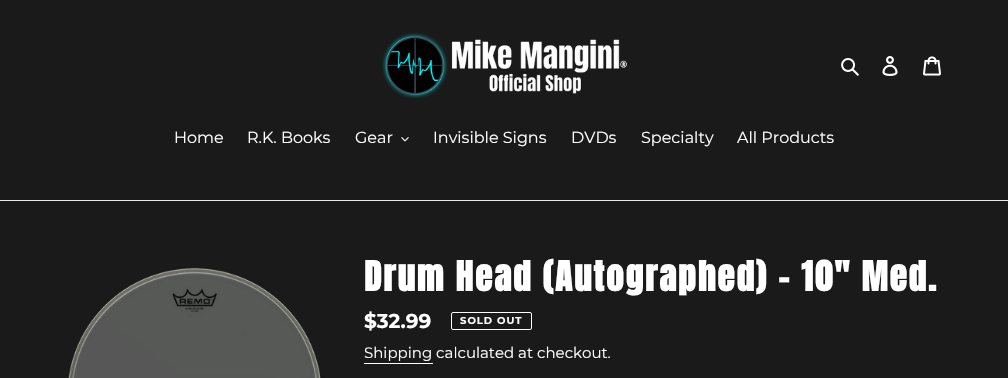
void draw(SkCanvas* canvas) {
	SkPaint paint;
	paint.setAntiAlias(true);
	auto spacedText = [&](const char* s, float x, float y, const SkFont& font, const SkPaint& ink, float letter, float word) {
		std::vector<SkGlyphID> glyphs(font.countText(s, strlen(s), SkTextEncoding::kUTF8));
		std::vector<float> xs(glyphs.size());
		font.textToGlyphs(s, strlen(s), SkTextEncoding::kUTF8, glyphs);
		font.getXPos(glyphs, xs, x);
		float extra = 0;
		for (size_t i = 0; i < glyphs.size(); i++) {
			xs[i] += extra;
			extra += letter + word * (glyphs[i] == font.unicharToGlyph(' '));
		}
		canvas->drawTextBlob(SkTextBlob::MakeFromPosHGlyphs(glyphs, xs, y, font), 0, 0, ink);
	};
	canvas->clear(0xff1a1a1a);
	canvas->drawImageRect(SkImages::DeferredFromEncodedData(SkData::MakeFromFileName("img1.png")), SkRect::MakeXYWH(382, 33, 246, 65), SkSamplingOptions());
	canvas->drawImageRect(SkImages::DeferredFromEncodedData(SkData::MakeFromFileName("img2.png")), SkRect::MakeXYWH(841, 58, 18, 18), SkSamplingOptions());
	canvas->drawImageRect(SkImages::DeferredFromEncodedData(SkData::MakeFromFileName("img3.png")), SkRect::MakeXYWH(882, 56, 16, 20), SkSamplingOptions());
	canvas->drawImageRect(SkImages::DeferredFromEncodedData(SkData::MakeFromFileName("img4.png")), SkRect::MakeXYWH(923, 56, 18, 20), SkSamplingOptions());
	paint.setColor(0xffebebeb);
	canvas->drawRect(SkRect::MakeXYWH(0, 200, 1008, 1), paint);
	SkFont f1(fontMgr->matchFamilyStyle("Montserrat", SkFontStyle::Normal()), 16);
	f1.setSubpixel(true);
	paint.setColor(0xffffffff);
	canvas->drawString("Home", 174, 143, f1, paint);
	canvas->drawString("R.K. Books", 247, 143, f1, paint);
	canvas->drawString("Gear", 355, 143, f1, paint);
	canvas->drawImageRect(SkImages::DeferredFromEncodedData(SkData::MakeFromFileName("img5.png")), SkRect::MakeXYWH(401, 137, 8, 5), SkSamplingOptions());
	canvas->drawString("Invisible Signs", 433, 143, f1, paint);
	canvas->drawString("DVDs", 571, 143, f1, paint);
	canvas->drawString("Specialty", 641, 143, f1, paint);
	canvas->drawString("All Products", 737, 143, f1, paint);
	canvas->drawImageRect(SkImages::DeferredFromEncodedData(SkData::MakeFromFileName("img6.png")), SkRect::MakeXYWH(68, 267, 253, 111), SkSamplingOptions());
	SkFont f2(fontMgr->matchFamilyStyle("Anton", SkFontStyle::Bold()), 35);
	f2.setSubpixel(true);
	spacedText("Drum Head (Autographed) - 10\" Med.", 364, 291, f2, paint, 2, 0);
	SkFont f3(fontMgr->matchFamilyStyle("Montserrat", SkFontStyle::Bold()), 20);
	f3.setSubpixel(true);
	canvas->drawString("$32.99", 364, 328, f3, paint);
	paint.setStroke(true);
	paint.setStrokeWidth(1);
	canvas->drawRoundRect(SkRect::MakeXYWH(451.5, 312.5, 80, 17), 1.5, 1.5, paint);
	SkFont f4(fontMgr->matchFamilyStyle("Montserrat", SkFontStyle::Bold()), 10);
	f4.setSubpixel(true);
	paint.setStroke(false);
	spacedText("SOLD OUT", 460, 324, f4, paint, 1, 0);
	SkFont f5(fontMgr->matchFamilyStyle("Montserrat", SkFontStyle::Normal()), 15);
	f5.setSubpixel(true);
	canvas->drawString("Shipping calculated at checkout.", 364, 358, f5, paint);
	canvas->drawRect(SkRect::MakeXYWH(364, 363, 69, 1), paint);
}
